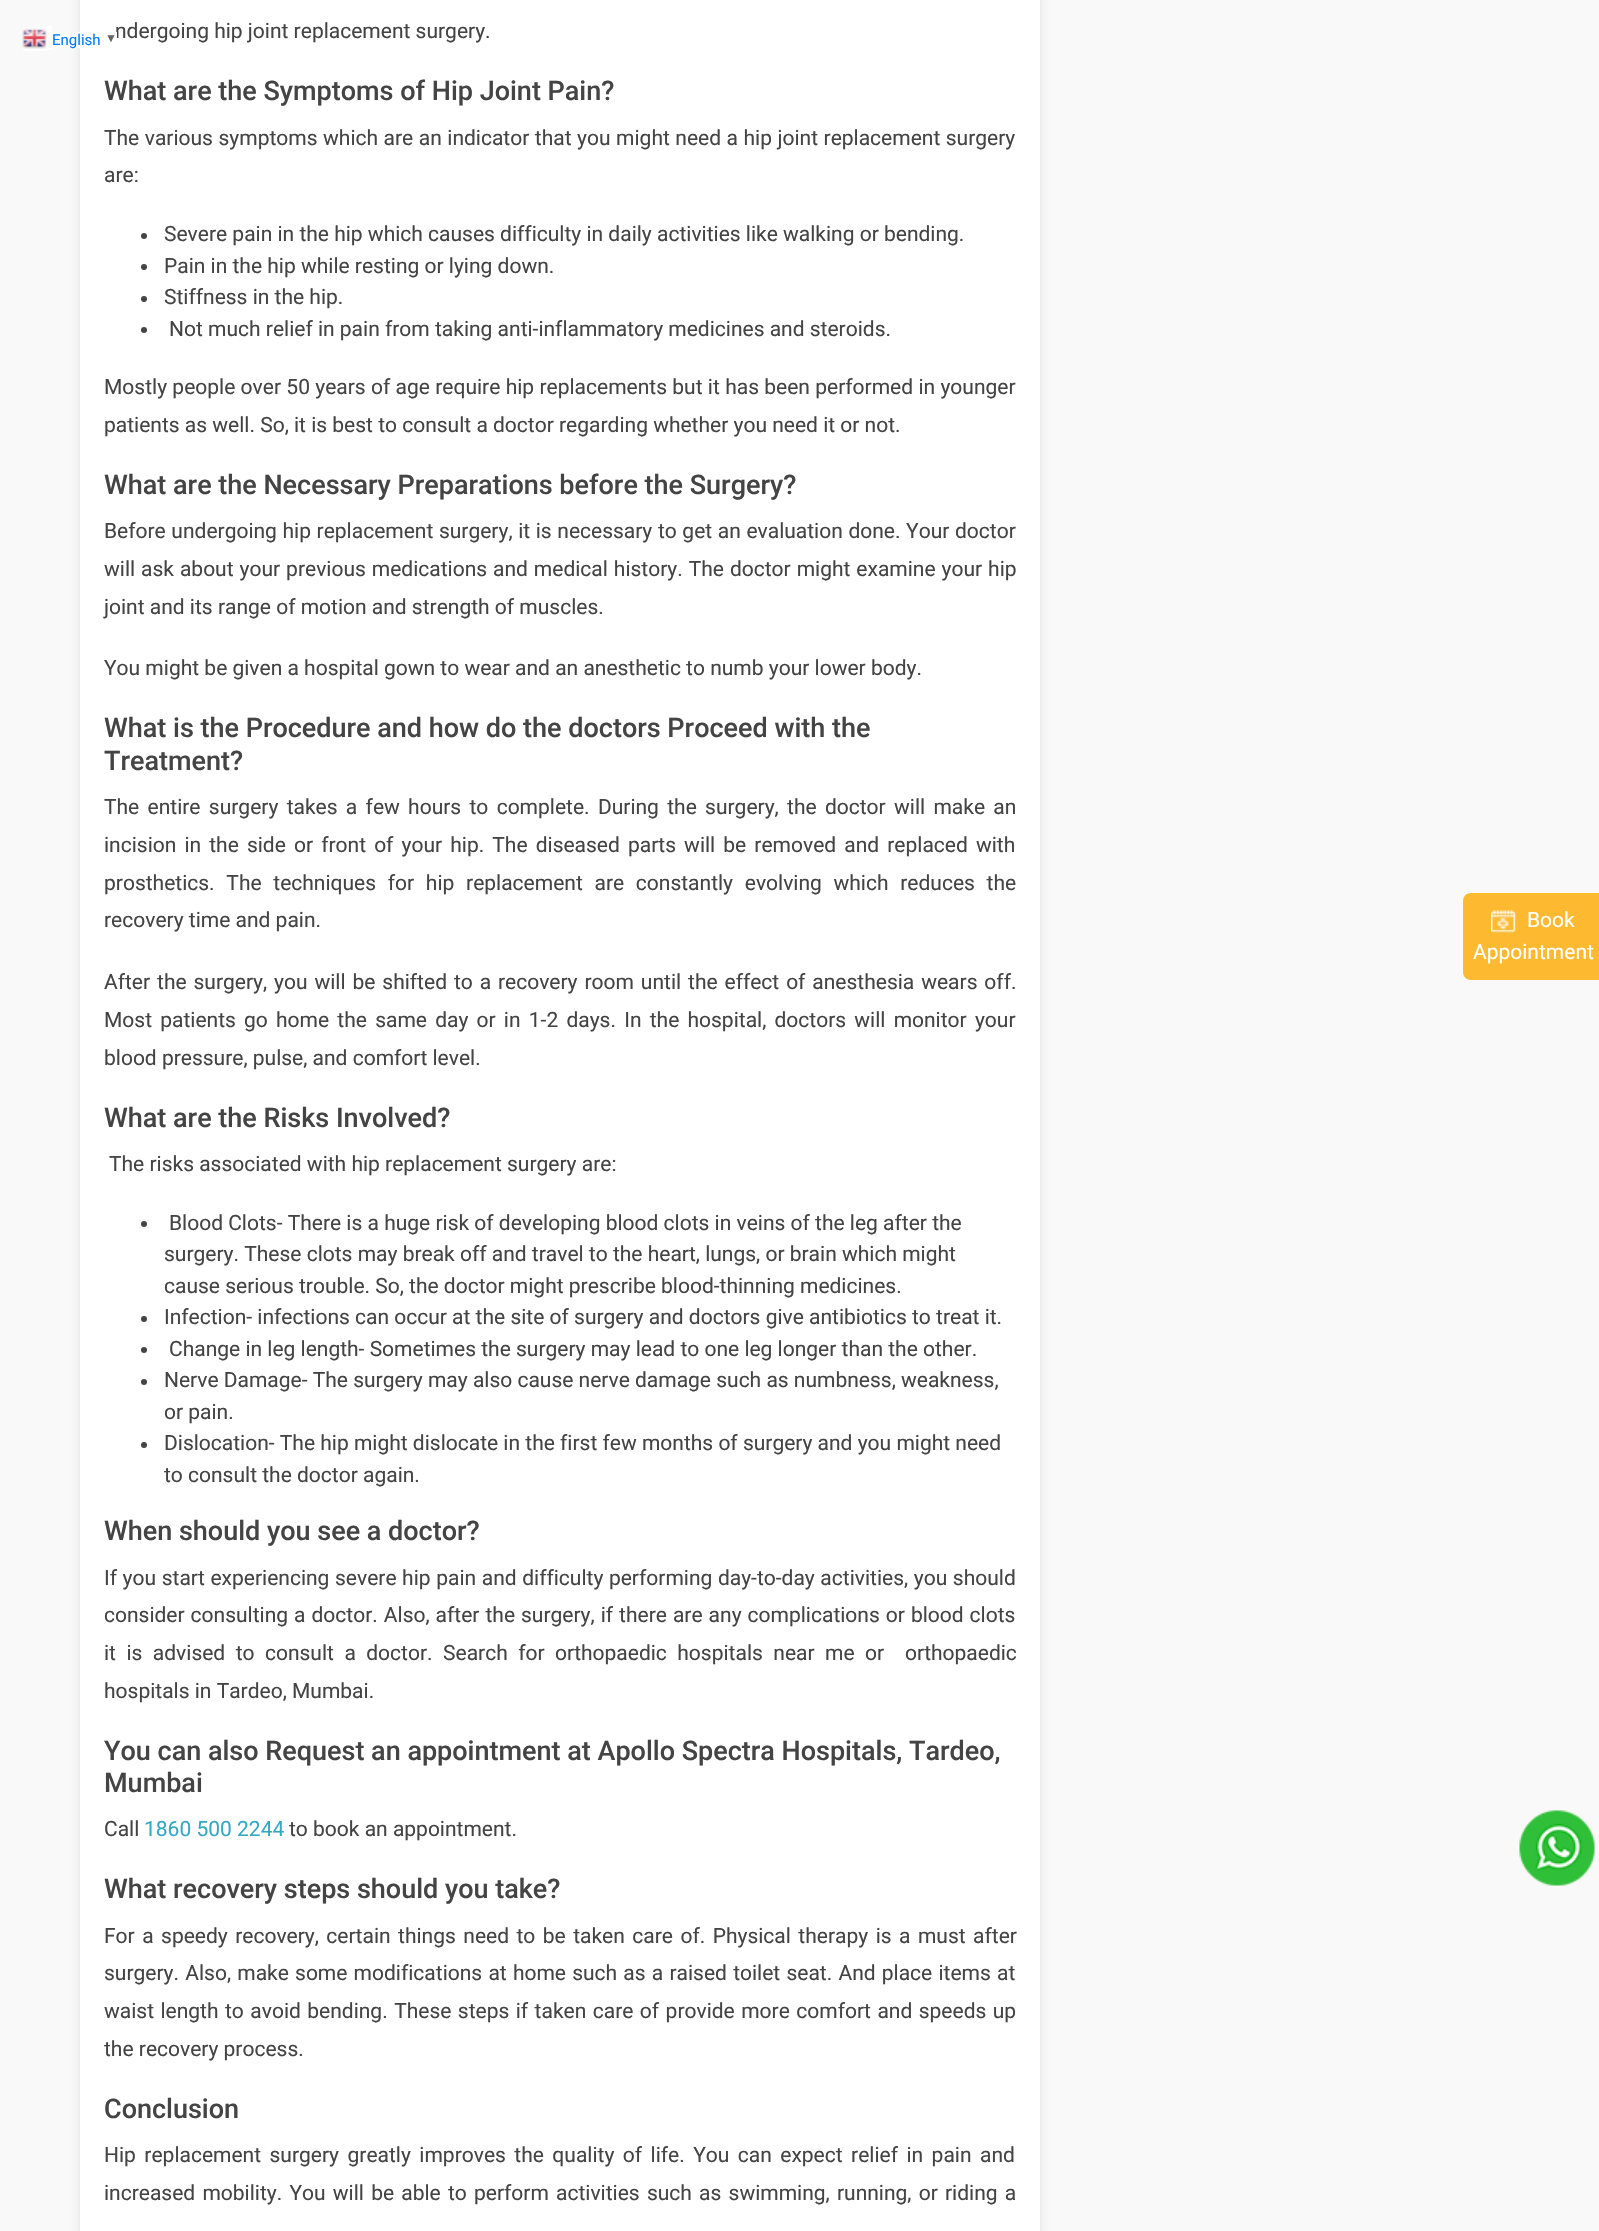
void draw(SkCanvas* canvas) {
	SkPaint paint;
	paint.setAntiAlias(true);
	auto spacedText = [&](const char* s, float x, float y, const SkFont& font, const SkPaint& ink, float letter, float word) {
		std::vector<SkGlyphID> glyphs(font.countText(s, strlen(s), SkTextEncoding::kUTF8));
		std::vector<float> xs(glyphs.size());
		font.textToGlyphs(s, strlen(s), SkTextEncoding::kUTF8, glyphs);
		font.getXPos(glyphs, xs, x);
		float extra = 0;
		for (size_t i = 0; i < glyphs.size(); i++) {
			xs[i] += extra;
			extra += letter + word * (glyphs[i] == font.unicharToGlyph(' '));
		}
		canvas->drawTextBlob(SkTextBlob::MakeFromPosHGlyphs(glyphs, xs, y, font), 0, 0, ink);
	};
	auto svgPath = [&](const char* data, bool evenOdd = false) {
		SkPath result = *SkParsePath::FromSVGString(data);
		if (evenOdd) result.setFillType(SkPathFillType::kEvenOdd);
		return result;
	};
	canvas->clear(0xfff9f9f9);
	paint.setColor(0xffffffff);
	canvas->drawRect(SkRect::MakeXYWH(23, 27, 24, 24), paint);
	canvas->drawImageRect(SkImages::DeferredFromEncodedData(SkData::MakeFromFileName("img1.png")), SkRect::MakeXYWH(22, 28, 25, 21), SkSamplingOptions());
	paint.setColor(0x1a000000);
	paint.setMaskFilter(SkMaskFilter::MakeBlur(kNormal_SkBlurStyle, 4.5));
	canvas->drawRect(SkRect::MakeXYWH(80, -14, 960, 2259), paint);
	paint.setMaskFilter(nullptr);
	paint.setColor(0xffffffff);
	canvas->drawRect(SkRect::MakeXYWH(52, 32, 28, 16), paint);
	canvas->drawRect(SkRect::MakeXYWH(80, 0, 960, 2231), paint);
	SkFont f1(fontMgr->matchFamilyStyle("Roboto", SkFontStyle::Normal()), 15);
	f1.setSubpixel(true);
	paint.setColor(0xff007bff);
	canvas->drawString("English", 52, 45, f1, paint);
	paint.setColor(0xffffffff);
	canvas->drawRect(SkRect::MakeXYWH(47, 26, 5, 24), paint);
	SkFont f2(fontMgr->matchFamilyStyle("Liberation Sans", SkFontStyle::Bold()), 12);
	f2.setSubpixel(true);
	paint.setColor(0xff666666);
	canvas->drawString("▼", 105, 42, f2, paint);
	SkFont f3(fontMgr->matchFamilyStyle("Roboto", SkFontStyle::Normal()), 21);
	f3.setSubpixel(true);
	paint.setColor(0xff444444);
	canvas->drawString("ndergoing hip joint replacement surgery.", 115, 38, f3, paint);
	paint.setColor(0xffffffff);
	canvas->drawRect(SkRect::MakeXYWH(116, 32, 1, 6), paint);
	SkFont f4(fontMgr->matchFamilyStyle("Roboto", SkFontStyle(500, SkFontStyle::kNormal_Width, SkFontStyle::kUpright_Slant)), 27);
	f4.setSubpixel(true);
	paint.setColor(0xff444444);
	canvas->drawString("What are the Symptoms of Hip Joint Pain?", 104, 100, f4, paint);
	spacedText("The various symptoms which are an indicator that you might need a hip joint replacement surgery", 104, 145, f3, paint, 0, 0.3);
	canvas->drawString("are:", 104, 182, f3, paint);
	canvas->drawCircle(144, 236, 3, paint);
	canvas->drawString("Severe pain in the hip which causes difficulty in daily activities like walking or bending.", 164, 241, f3, paint);
	canvas->drawCircle(144, 267, 3, paint);
	canvas->drawString("Pain in the hip while resting or lying down.", 164, 273, f3, paint);
	canvas->drawCircle(144, 299, 3, paint);
	canvas->drawString("Stiffness in the hip.", 164, 304, f3, paint);
	canvas->drawCircle(144, 330, 3, paint);
	canvas->drawString("Not much relief in pain from taking anti-inflammatory medicines and steroids.", 169, 336, f3, paint);
	spacedText("Mostly people over 50 years of age require hip replacements but it has been performed in younger", 104, 394, f3, paint, 0, 0.1);
	canvas->drawString("patients as well. So, it is best to consult a doctor regarding whether you need it or not.", 104, 432, f3, paint);
	canvas->drawString("What are the Necessary Preparations before the Surgery?", 104, 494, f4, paint);
	spacedText("Before undergoing hip replacement surgery, it is necessary to get an evaluation done. Your doctor", 104, 538, f3, paint, 0, 0.4);
	spacedText("will ask about your previous medications and medical history. The doctor might examine your hip", 104, 576, f3, paint, 0, 0.75);
	canvas->drawString("joint and its range of motion and strength of muscles.", 104, 614, f3, paint);
	canvas->drawString("You might be given a hospital gown to wear and an anesthetic to numb your lower body.", 104, 675, f3, paint);
	canvas->drawString("What is the Procedure and how do the doctors Proceed with the", 104, 737, f4, paint);
	canvas->drawString("Treatment?", 104, 770, f4, paint);
	spacedText("The entire surgery takes a few hours to complete. During the surgery, the doctor will make an", 104, 814, f3, paint, 0, 3.1);
	spacedText("incision in the side or front of your hip. The diseased parts will be removed and replaced with", 104, 852, f3, paint, 0, 2.9);
	spacedText("prosthetics. The techniques for hip replacement are constantly evolving which reduces the", 104, 890, f3, paint, 0, 6.5);
	canvas->drawString("recovery time and pain.", 104, 927, f3, paint);
	spacedText("After the surgery, you will be shifted to a recovery room until the effect of anesthesia wears off.", 104, 989, f3, paint, 0, 1.7);
	spacedText("Most patients go home the same day or in 1-2 days. In the hospital, doctors will monitor your", 104, 1027, f3, paint, 0, 3);
	canvas->drawString("blood pressure, pulse, and comfort level.", 104, 1065, f3, paint);
	canvas->drawString("What are the Risks Involved?", 104, 1127, f4, paint);
	canvas->drawString("The risks associated with hip replacement surgery are:", 109, 1171, f3, paint);
	canvas->drawCircle(144, 1224, 3, paint);
	canvas->drawString("Blood Clots- There is a huge risk of developing blood clots in veins of the leg after the", 169, 1230, f3, paint);
	canvas->drawString("surgery. These clots may break off and travel to the heart, lungs, or brain which might", 164, 1261, f3, paint);
	canvas->drawString("cause serious trouble. So, the doctor might prescribe blood-thinning medicines.", 164, 1293, f3, paint);
	canvas->drawCircle(144, 1319, 3, paint);
	canvas->drawString("Infection- infections can occur at the site of surgery and doctors give antibiotics to treat it.", 164, 1324, f3, paint);
	canvas->drawCircle(144, 1350, 3, paint);
	canvas->drawString("Change in leg length- Sometimes the surgery may lead to one leg longer than the other.", 169, 1356, f3, paint);
	canvas->drawCircle(144, 1382, 3, paint);
	canvas->drawString("Nerve Damage- The surgery may also cause nerve damage such as numbness, weakness,", 164, 1387, f3, paint);
	canvas->drawString("or pain.", 164, 1419, f3, paint);
	canvas->drawCircle(144, 1445, 3, paint);
	canvas->drawString("Dislocation- The hip might dislocate in the first few months of surgery and you might need", 164, 1450, f3, paint);
	canvas->drawString("to consult the doctor again.", 164, 1482, f3, paint);
	canvas->drawString("When should you see a doctor?", 104, 1540, f4, paint);
	spacedText("If you start experiencing severe hip pain and difficulty performing day-to-day activities, you should", 104, 1585, f3, paint, 0, 0.4);
	spacedText("consider consulting a doctor. Also, after the surgery, if there are any complications or blood clots", 104, 1622, f3, paint, 0, 0.8);
	spacedText("it is advised to consult a doctor. Search for orthopaedic hospitals near me or  orthopaedic", 104, 1660, f3, paint, 0, 5.25);
	canvas->drawString("hospitals in Tardeo, Mumbai.", 104, 1698, f3, paint);
	canvas->drawString("You can also Request an appointment at Apollo Spectra Hospitals, Tardeo,", 104, 1760, f4, paint);
	canvas->drawString("Mumbai", 104, 1792, f4, paint);
	canvas->drawString("Call", 104, 1836, f3, paint);
	paint.setColor(0xff35a8c4);
	canvas->drawString("1860 500 2244", 144, 1836, f3, paint);
	paint.setColor(0xff444444);
	canvas->drawString("to book an appointment.", 289, 1836, f3, paint);
	canvas->drawString("What recovery steps should you take?", 104, 1898, f4, paint);
	spacedText("For a speedy recovery, certain things need to be taken care of. Physical therapy is a must after", 104, 1943, f3, paint, 0, 2.25);
	spacedText("surgery. Also, make some modifications at home such as a raised toilet seat. And place items at", 104, 1980, f3, paint, 0, 1);
	spacedText("waist length to avoid bending. These steps if taken care of provide more comfort and speeds up", 104, 2018, f3, paint, 0, 1.25);
	canvas->drawString("the recovery process.", 104, 2056, f3, paint);
	canvas->drawString("Conclusion", 104, 2118, f4, paint);
	spacedText("Hip replacement surgery greatly improves the quality of life. You can expect relief in pain and", 104, 2162, f3, paint, 0, 3.25);
	spacedText("increased mobility. You will be able to perform activities such as swimming, running, or riding a", 104, 2200, f3, paint, 0, 2);
	paint.setColor(0xfffdb92f);
	canvas->drawPath(svgPath("M1471 893H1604V980H1471C1466.5 980 1463 976.5 1463 972V901C1463 896.5 1466.5 893 1471 893Z"), paint);
	canvas->drawImageRect(SkImages::DeferredFromEncodedData(SkData::MakeFromFileName("img2.png")), SkRect::MakeXYWH(1491, 909, 25, 25), SkSamplingOptions());
	paint.setColor(0xffffffff);
	canvas->drawString("Book", 1527, 927, f3, paint);
	canvas->drawString("Appointment", 1473, 959, f3, paint);
	canvas->drawImageRect(SkImages::DeferredFromEncodedData(SkData::MakeFromFileName("img3.png")), SkRect::MakeXYWH(1519, 1810, 76, 76), SkSamplingOptions());
}
